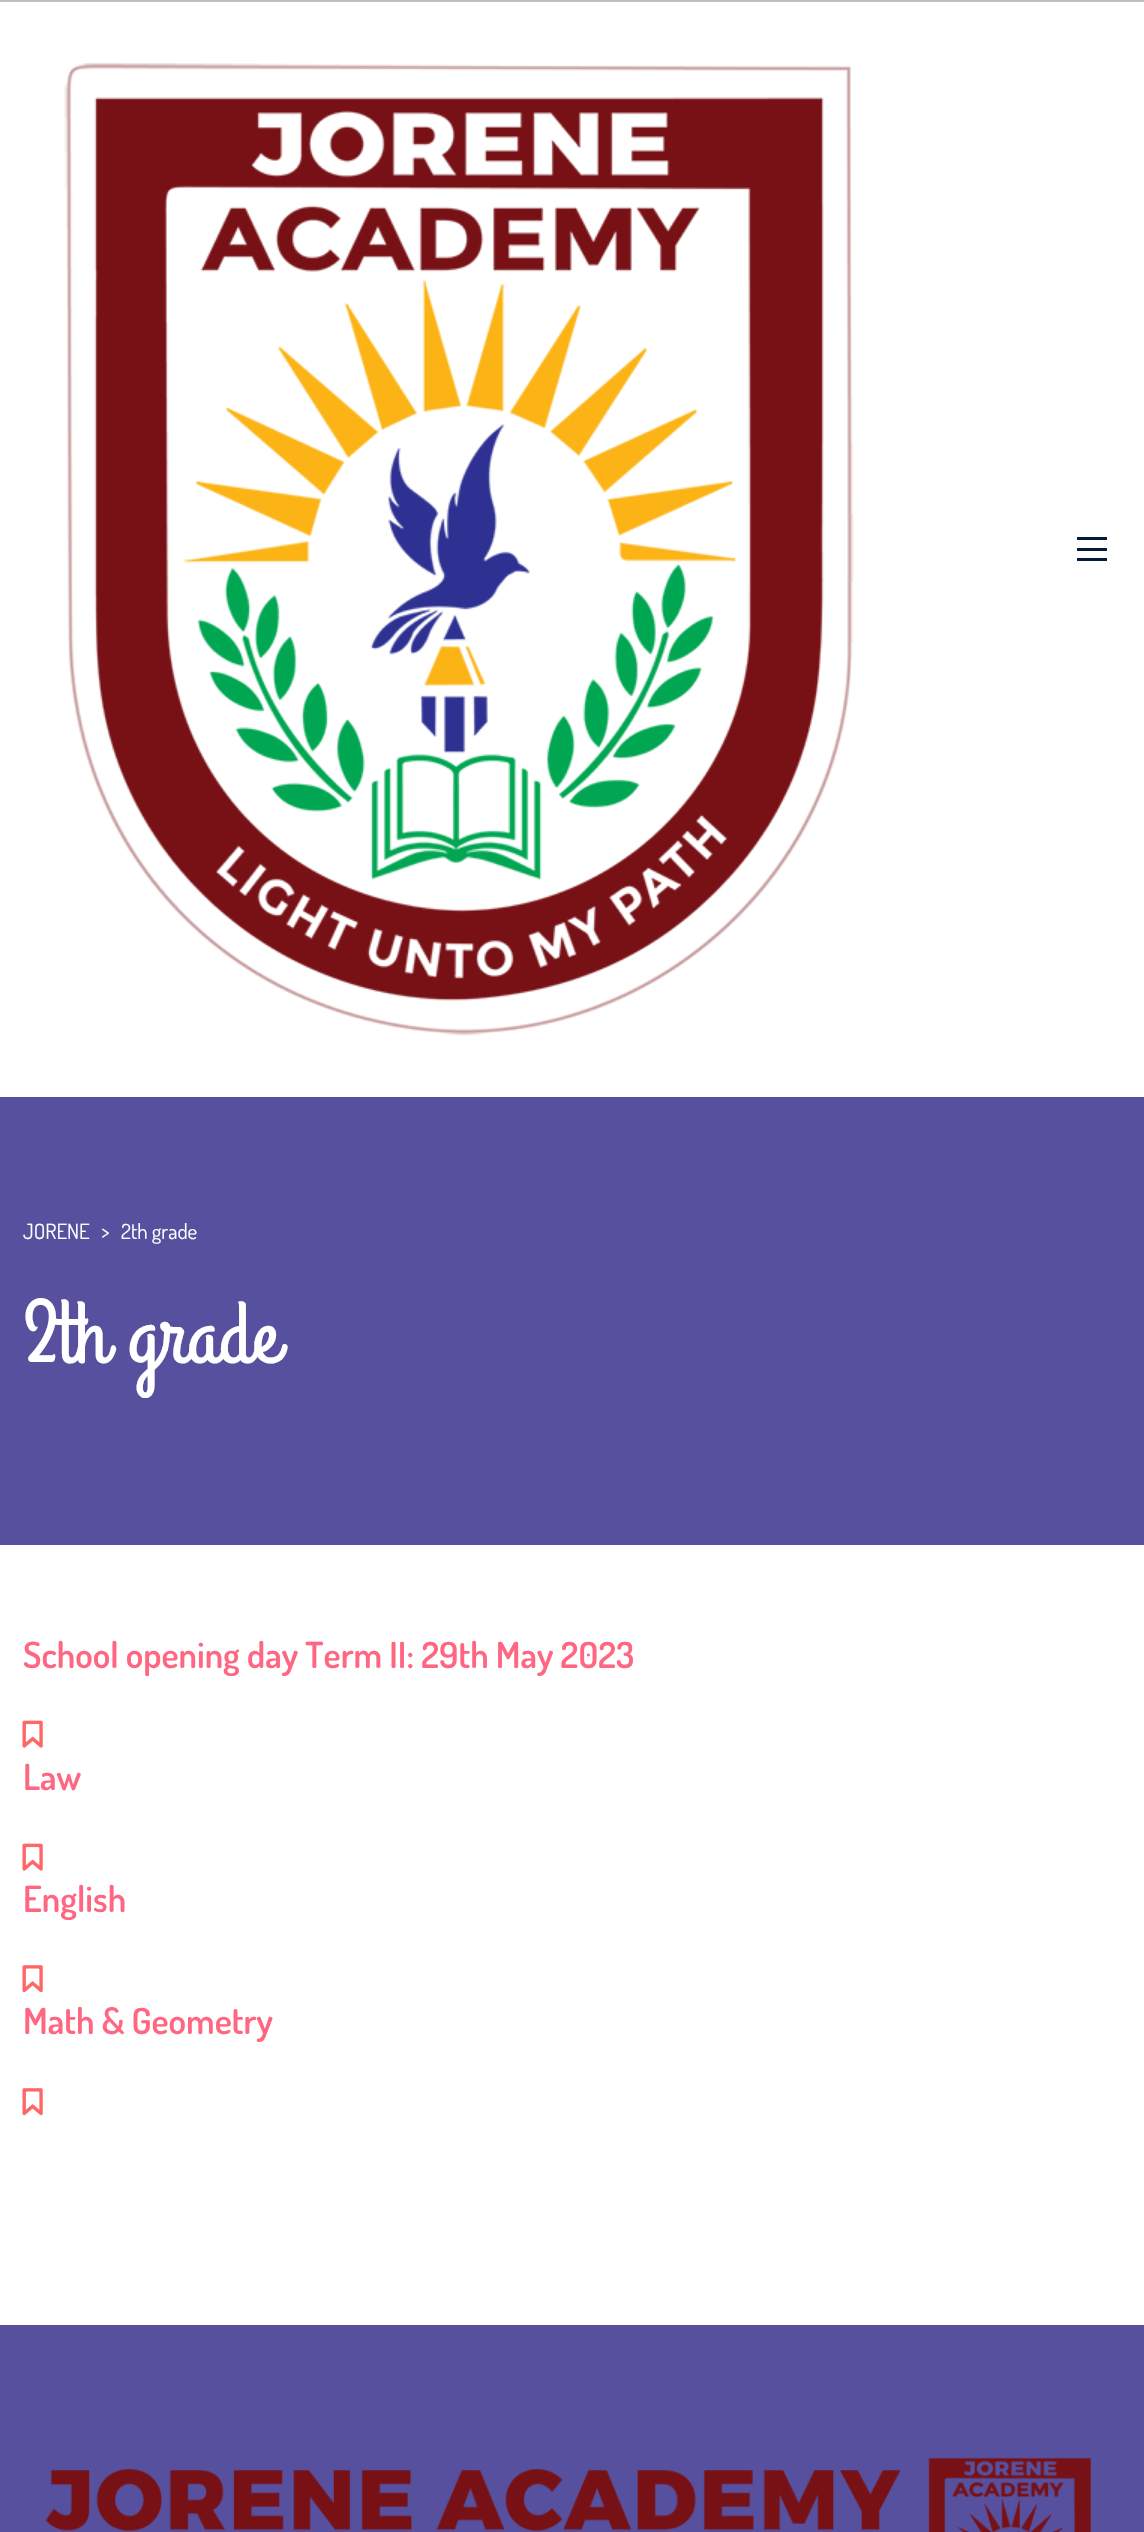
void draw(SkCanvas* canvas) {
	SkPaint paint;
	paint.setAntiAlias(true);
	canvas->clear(0xffffffff);
	paint.setColor(0xffbfbfbf);
	canvas->drawRect(SkRect::MakeXYWH(0, 0, 1144, 2), paint);
	canvas->drawImageRect(SkImages::DeferredFromEncodedData(SkData::MakeFromFileName("img1.png")), SkRect::MakeXYWH(64, 63, 790, 973), SkSamplingOptions());
	paint.setColor(0xff011b3a);
	canvas->drawRect(SkRect::MakeXYWH(1077, 548, 30, 3), paint);
	canvas->drawRect(SkRect::MakeXYWH(1077, 537, 30, 3), paint);
	canvas->drawRect(SkRect::MakeXYWH(1077, 558, 30, 3), paint);
	paint.setColor(0xff56509f);
	canvas->drawRect(SkRect::MakeXYWH(0, 1097, 1144, 448), paint);
	SkFont f1(fontMgr->matchFamilyStyle("Dosis", SkFontStyle::Normal()), 21);
	f1.setSubpixel(true);
	paint.setColor(0xffffffff);
	canvas->drawString("JORENE", 23, 1239, f1, paint);
	canvas->drawString(">", 101, 1239, f1, paint);
	canvas->drawString("2th grade", 121, 1239, f1, paint);
	SkFont f2(fontMgr->matchFamilyStyle("Grand Hotel", SkFontStyle::Normal()), 90);
	f2.setSubpixel(true);
	canvas->drawString("2th grade", 23, 1361, f2, paint);
	SkFont f3(fontMgr->matchFamilyStyle("Dosis", SkFontStyle(600, SkFontStyle::kNormal_Width, SkFontStyle::kUpright_Slant)), 36);
	f3.setSubpixel(true);
	paint.setColor(0xffff6682);
	canvas->drawString("School opening day Term II: 29th May 2023", 23, 1668, f3, paint);
	canvas->drawImageRect(SkImages::DeferredFromEncodedData(SkData::MakeFromFileName("img2.png")), SkRect::MakeXYWH(22, 1720, 21, 28), SkSamplingOptions());
	canvas->drawString("Law", 23, 1790, f3, paint);
	canvas->drawImageRect(SkImages::DeferredFromEncodedData(SkData::MakeFromFileName("img2.png")), SkRect::MakeXYWH(22, 1843, 21, 28), SkSamplingOptions());
	canvas->drawString("English", 23, 1912, f3, paint);
	canvas->drawImageRect(SkImages::DeferredFromEncodedData(SkData::MakeFromFileName("img3.png")), SkRect::MakeXYWH(22, 1965, 21, 28), SkSamplingOptions());
	canvas->drawString("Math & Geometry", 23, 2034, f3, paint);
	canvas->drawImageRect(SkImages::DeferredFromEncodedData(SkData::MakeFromFileName("img3.png")), SkRect::MakeXYWH(22, 2088, 21, 28), SkSamplingOptions());
	paint.setColor(0xff56509f);
	canvas->drawRect(SkRect::MakeXYWH(0, 2325, 1144, 207), paint);
	canvas->drawImageRect(SkImages::DeferredFromEncodedData(SkData::MakeFromFileName("img4.png")), SkRect::MakeXYWH(45, 2457, 1046, 75), SkSamplingOptions());
}
